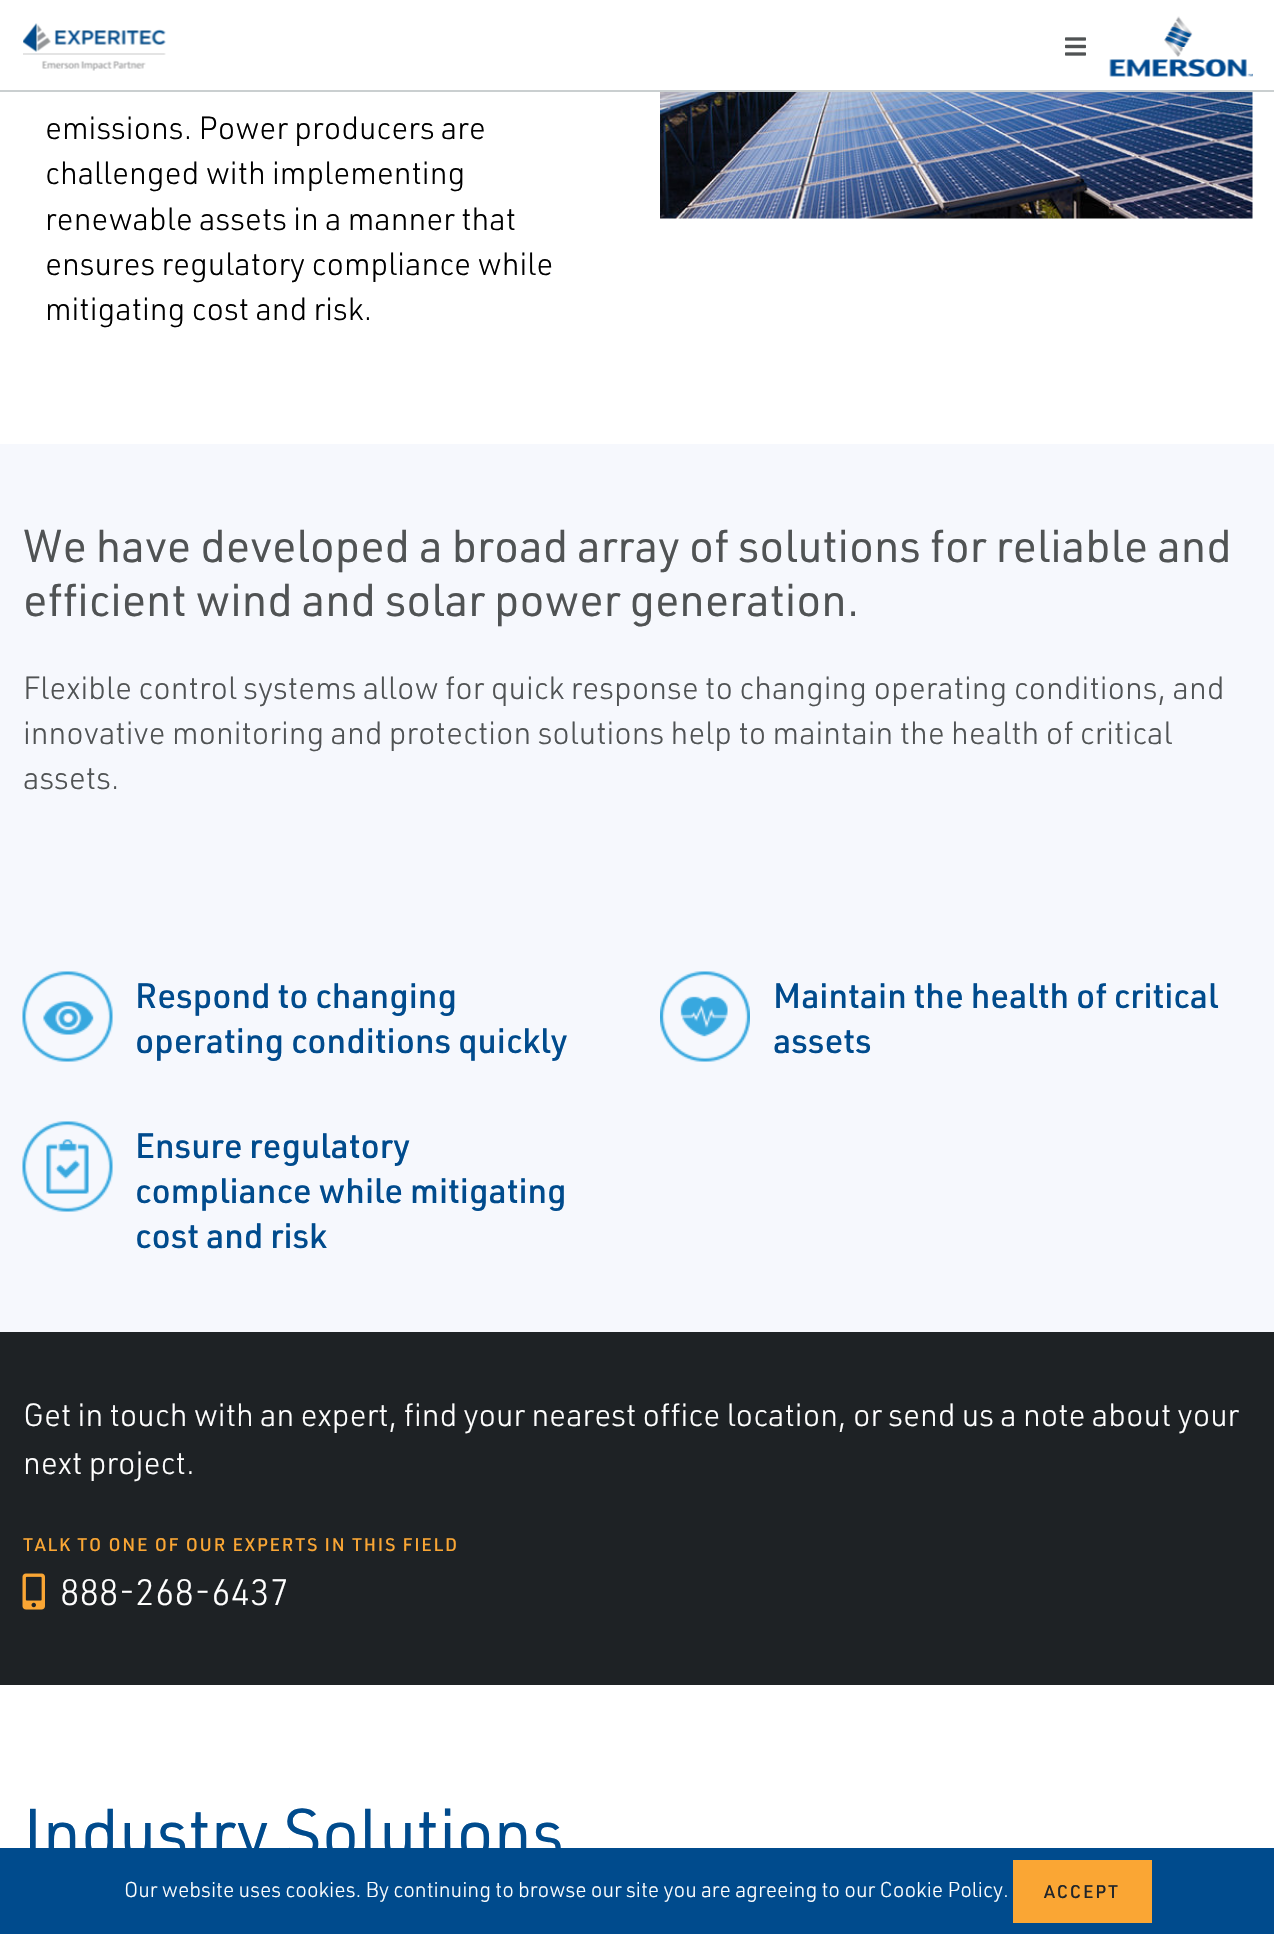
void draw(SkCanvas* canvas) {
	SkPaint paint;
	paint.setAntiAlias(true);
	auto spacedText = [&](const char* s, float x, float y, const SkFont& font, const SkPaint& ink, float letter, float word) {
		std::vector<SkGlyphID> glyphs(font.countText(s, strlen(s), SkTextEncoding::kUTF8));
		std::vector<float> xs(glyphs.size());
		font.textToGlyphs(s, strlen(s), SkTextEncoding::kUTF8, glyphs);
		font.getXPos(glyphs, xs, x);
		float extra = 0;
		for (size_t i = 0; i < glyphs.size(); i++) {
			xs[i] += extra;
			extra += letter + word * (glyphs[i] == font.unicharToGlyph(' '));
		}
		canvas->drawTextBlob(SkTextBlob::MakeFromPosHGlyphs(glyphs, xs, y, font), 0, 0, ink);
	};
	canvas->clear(0xffffffff);
	paint.setColor(0xffcacfd0);
	canvas->drawRect(SkRect::MakeXYWH(0, 90, 1274, 2), paint);
	canvas->drawImageRect(SkImages::DeferredFromEncodedData(SkData::MakeFromFileName("img1.png")), SkRect::MakeXYWH(23, 23, 143, 48), SkSamplingOptions());
	canvas->drawImageRect(SkImages::DeferredFromEncodedData(SkData::MakeFromFileName("img2.png")), SkRect::MakeXYWH(1065, 37, 21, 19), SkSamplingOptions());
	canvas->drawImageRect(SkImages::DeferredFromEncodedData(SkData::MakeFromFileName("img3.png")), SkRect::MakeXYWH(1109, 16, 144, 61), SkSamplingOptions());
	SkFont f1(fontMgr->matchFamilyStyle("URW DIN", SkFontStyle(300, SkFontStyle::kNormal_Width, SkFontStyle::kUpright_Slant)), 31.5);
	f1.setSubpixel(true);
	paint.setColor(0xff000000);
	canvas->drawString("emissions. Power producers are", 45, 139, f1, paint);
	canvas->drawString("challenged with implementing", 45, 184, f1, paint);
	canvas->drawString("renewable assets in a manner that", 45, 230, f1, paint);
	canvas->drawString("ensures regulatory compliance while", 45, 275, f1, paint);
	canvas->drawString("mitigating cost and risk.", 45, 320, f1, paint);
	canvas->drawImageRect(SkImages::DeferredFromEncodedData(SkData::MakeFromFileName("img4.png")), SkRect::MakeXYWH(660, 92, 593, 127), SkSamplingOptions());
	paint.setColor(0xfff6f8fd);
	canvas->drawRect(SkRect::MakeXYWH(0, 444, 1274, 888), paint);
	SkFont f2(fontMgr->matchFamilyStyle("URW DIN", SkFontStyle::Normal()), 45);
	f2.setSubpixel(true);
	paint.setColor(0xff505354);
	canvas->drawString("We have developed a broad array of solutions for reliable and", 23, 562, f2, paint);
	canvas->drawString("efficient wind and solar power generation.", 23, 616, f2, paint);
	canvas->drawString("Flexible control systems allow for quick response to changing operating conditions, and", 23, 699, f1, paint);
	canvas->drawString("innovative monitoring and protection solutions help to maintain the health of critical", 23, 744, f1, paint);
	canvas->drawString("assets.", 23, 789, f1, paint);
	canvas->drawImageRect(SkImages::DeferredFromEncodedData(SkData::MakeFromFileName("img5.png")), SkRect::MakeXYWH(22, 971, 91, 91), SkSamplingOptions());
	SkFont f3(fontMgr->matchFamilyStyle("URW DIN", SkFontStyle(500, SkFontStyle::kNormal_Width, SkFontStyle::kUpright_Slant)), 34.5);
	f3.setSubpixel(true);
	paint.setColor(0xff004b8d);
	canvas->drawString("Respond to changing", 135, 1008, f3, paint);
	canvas->drawString("operating conditions quickly", 135, 1053, f3, paint);
	canvas->drawImageRect(SkImages::DeferredFromEncodedData(SkData::MakeFromFileName("img6.png")), SkRect::MakeXYWH(22, 1121, 91, 91), SkSamplingOptions());
	canvas->drawString("Ensure regulatory", 135, 1158, f3, paint);
	canvas->drawString("compliance while mitigating", 135, 1203, f3, paint);
	canvas->drawString("cost and risk", 135, 1248, f3, paint);
	canvas->drawImageRect(SkImages::DeferredFromEncodedData(SkData::MakeFromFileName("img7.png")), SkRect::MakeXYWH(660, 971, 90, 91), SkSamplingOptions());
	canvas->drawString("Maintain the health of critical", 773, 1008, f3, paint);
	canvas->drawString("assets", 773, 1053, f3, paint);
	paint.setColor(0xff1e2225);
	canvas->drawRect(SkRect::MakeXYWH(0, 1332, 1274, 353), paint);
	paint.setColor(0xffffffff);
	canvas->drawString("Get in touch with an expert, find your nearest office location, or send us a note about your", 23, 1426, f1, paint);
	canvas->drawString("next project.", 23, 1474, f1, paint);
	SkFont f4(fontMgr->matchFamilyStyle("URW DIN", SkFontStyle(500, SkFontStyle::kNormal_Width, SkFontStyle::kUpright_Slant)), 18);
	f4.setSubpixel(true);
	paint.setColor(0xfffaa634);
	spacedText("TALK TO ONE OF OUR EXPERTS IN THIS FIELD", 23, 1551, f4, paint, 1.8, 0);
	canvas->drawImageRect(SkImages::DeferredFromEncodedData(SkData::MakeFromFileName("img8.png")), SkRect::MakeXYWH(22, 1573, 23, 37), SkSamplingOptions());
	SkFont f5(fontMgr->matchFamilyStyle("URW DIN", SkFontStyle(300, SkFontStyle::kNormal_Width, SkFontStyle::kUpright_Slant)), 36);
	f5.setSubpixel(true);
	paint.setColor(0xffffffff);
	canvas->drawString("888-268-6437", 60, 1605, f5, paint);
	SkFont f6(fontMgr->matchFamilyStyle("URW DIN", SkFontStyle::Normal()), 67.5);
	f6.setSubpixel(true);
	paint.setColor(0xff004b8d);
	canvas->drawString("Industry Solutions", 23, 1857, f6, paint);
	canvas->drawRect(SkRect::MakeXYWH(0, 1848, 1274, 86), paint);
	SkFont f7(fontMgr->matchFamilyStyle("URW DIN", SkFontStyle(300, SkFontStyle::kNormal_Width, SkFontStyle::kUpright_Slant)), 21);
	f7.setSubpixel(true);
	paint.setColor(0xffffffff);
	canvas->drawString("Our website uses cookies. By continuing to browse our site you are agreeing to our Cookie Policy.", 124, 1897, f7, paint);
	paint.setColor(0xfffaa634);
	canvas->drawRect(SkRect::MakeXYWH(1013, 1860, 139, 63), paint);
	paint.setColor(0xff212529);
	spacedText("ACCEPT", 1044, 1898, f4, paint, 1.8, 0);
}
